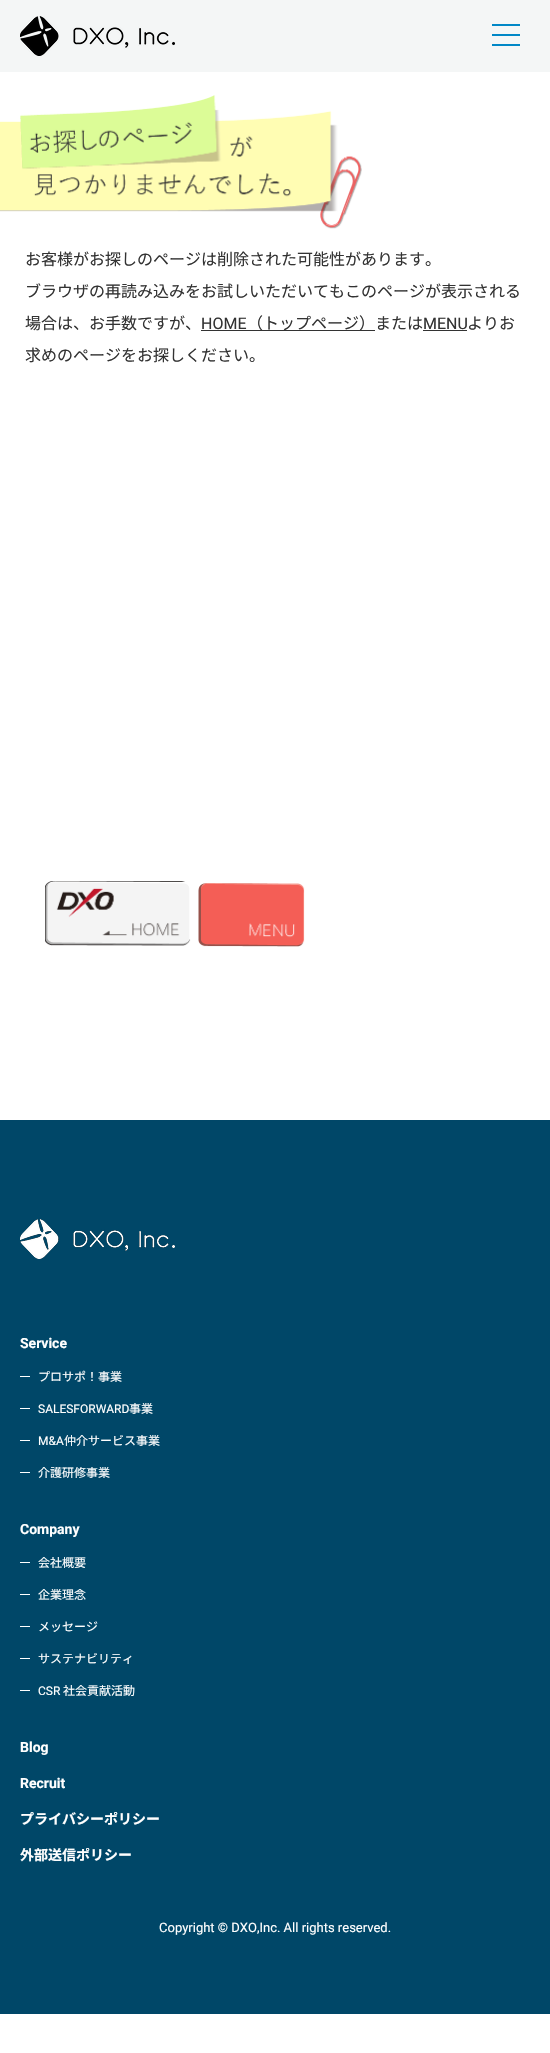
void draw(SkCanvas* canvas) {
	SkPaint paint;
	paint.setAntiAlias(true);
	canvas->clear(0xffffffff);
	paint.setColor(0xfff4f6f6);
	canvas->drawRect(SkRect::MakeXYWH(0, 0, 550, 72), paint);
	canvas->drawImageRect(SkImages::DeferredFromEncodedData(SkData::MakeFromFileName("img1.png")), SkRect::MakeXYWH(20, 16, 155, 40), SkSamplingOptions());
	canvas->drawImageRect(SkImages::DeferredFromEncodedData(SkData::MakeFromFileName("img2.png")), SkRect::MakeXYWH(492, 24, 28, 22), SkSamplingOptions());
	canvas->drawImageRect(SkImages::DeferredFromEncodedData(SkData::MakeFromFileName("img3.png")), SkRect::MakeXYWH(0, 95, 362, 134), SkSamplingOptions());
	SkFont f1(fontMgr->matchFamilyStyle("Noto Sans JP", SkFontStyle::Normal()), 16);
	f1.setSubpixel(true);
	paint.setColor(0xff333333);
	canvas->drawString("お客様がお探しのページは削除された可能性があります。", 25, 265, f1, paint);
	canvas->drawString("ブラウザの再読み込みをお試しいただいてもこのページが表示される", 25, 297, f1, paint);
	canvas->drawString("場合は、お手数ですが、", 25, 329, f1, paint);
	SkFont f2(fontMgr->matchFamilyStyle("Roboto", SkFontStyle::Normal()), 16);
	f2.setSubpixel(true);
	canvas->drawString("HOME", 201, 329, f2, paint);
	canvas->drawRect(SkRect::MakeXYWH(201, 330, 174, 1), paint);
	canvas->drawString("（トップページ）または", 247, 329, f1, paint);
	canvas->drawString("MENU", 423, 329, f2, paint);
	canvas->drawRect(SkRect::MakeXYWH(423, 330, 44, 1), paint);
	canvas->drawString("よりお", 467, 329, f1, paint);
	canvas->drawString("求めのページをお探しください。", 25, 361, f1, paint);
	canvas->drawImageRect(SkImages::DeferredFromEncodedData(SkData::MakeFromFileName("img4.png")), SkRect::MakeXYWH(45, 881, 146, 65), SkSamplingOptions());
	canvas->drawImageRect(SkImages::DeferredFromEncodedData(SkData::MakeFromFileName("img5.png")), SkRect::MakeXYWH(198, 883, 107, 64), SkSamplingOptions());
	paint.setColor(0xff004768);
	canvas->drawRect(SkRect::MakeXYWH(0, 1120, 550, 894), paint);
	canvas->drawImageRect(SkImages::DeferredFromEncodedData(SkData::MakeFromFileName("img6.png")), SkRect::MakeXYWH(20, 1219, 155, 40), SkSamplingOptions());
	SkFont f3(fontMgr->matchFamilyStyle("Roboto", SkFontStyle::Bold()), 14);
	f3.setSubpixel(true);
	paint.setColor(0xffffffff);
	canvas->drawString("Service", 20, 1348, f3, paint);
	canvas->drawRect(SkRect::MakeXYWH(20, 1376, 10, 1), paint);
	SkFont f4(fontMgr->matchFamilyStyle("Noto Sans JP", SkFontStyle::Normal()), 12);
	f4.setSubpixel(true);
	canvas->drawString("プロサポ！事業", 38, 1381, f4, paint);
	canvas->drawRect(SkRect::MakeXYWH(20, 1408, 10, 1), paint);
	SkFont f5(fontMgr->matchFamilyStyle("Roboto", SkFontStyle::Normal()), 12);
	f5.setSubpixel(true);
	canvas->drawString("SALESFORWARD", 38, 1413, f5, paint);
	canvas->drawString("事業", 129, 1413, f4, paint);
	canvas->drawRect(SkRect::MakeXYWH(20, 1440, 10, 1), paint);
	canvas->drawString("M&A", 38, 1445, f5, paint);
	canvas->drawString("仲介サービス事業", 64, 1445, f4, paint);
	canvas->drawRect(SkRect::MakeXYWH(20, 1472, 10, 1), paint);
	canvas->drawString("介護研修事業", 38, 1477, f4, paint);
	canvas->drawString("Company", 20, 1534, f3, paint);
	canvas->drawRect(SkRect::MakeXYWH(20, 1562, 10, 1), paint);
	canvas->drawString("会社概要", 38, 1567, f4, paint);
	canvas->drawRect(SkRect::MakeXYWH(20, 1594, 10, 1), paint);
	canvas->drawString("企業理念", 38, 1599, f4, paint);
	canvas->drawRect(SkRect::MakeXYWH(20, 1626, 10, 1), paint);
	canvas->drawString("メッセージ", 38, 1631, f4, paint);
	canvas->drawRect(SkRect::MakeXYWH(20, 1658, 10, 1), paint);
	canvas->drawString("サステナビリティ", 38, 1663, f4, paint);
	canvas->drawRect(SkRect::MakeXYWH(20, 1690, 10, 1), paint);
	canvas->drawString("CSR", 38, 1695, f5, paint);
	canvas->drawString("社会貢献活動", 63, 1695, f4, paint);
	canvas->drawString("Blog", 20, 1752, f3, paint);
	canvas->drawString("Recruit", 20, 1788, f3, paint);
	SkFont f6(fontMgr->matchFamilyStyle("Noto Sans JP", SkFontStyle::Bold()), 14);
	f6.setSubpixel(true);
	canvas->drawString("プライバシーポリシー", 20, 1824, f6, paint);
	canvas->drawString("外部送信ポリシー", 20, 1860, f6, paint);
	SkFont f7(fontMgr->matchFamilyStyle("Roboto", SkFontStyle::Normal()), 13);
	f7.setSubpixel(true);
	canvas->drawString("Copyright © DXO,Inc. All rights reserved.", 159, 1932, f7, paint);
}
